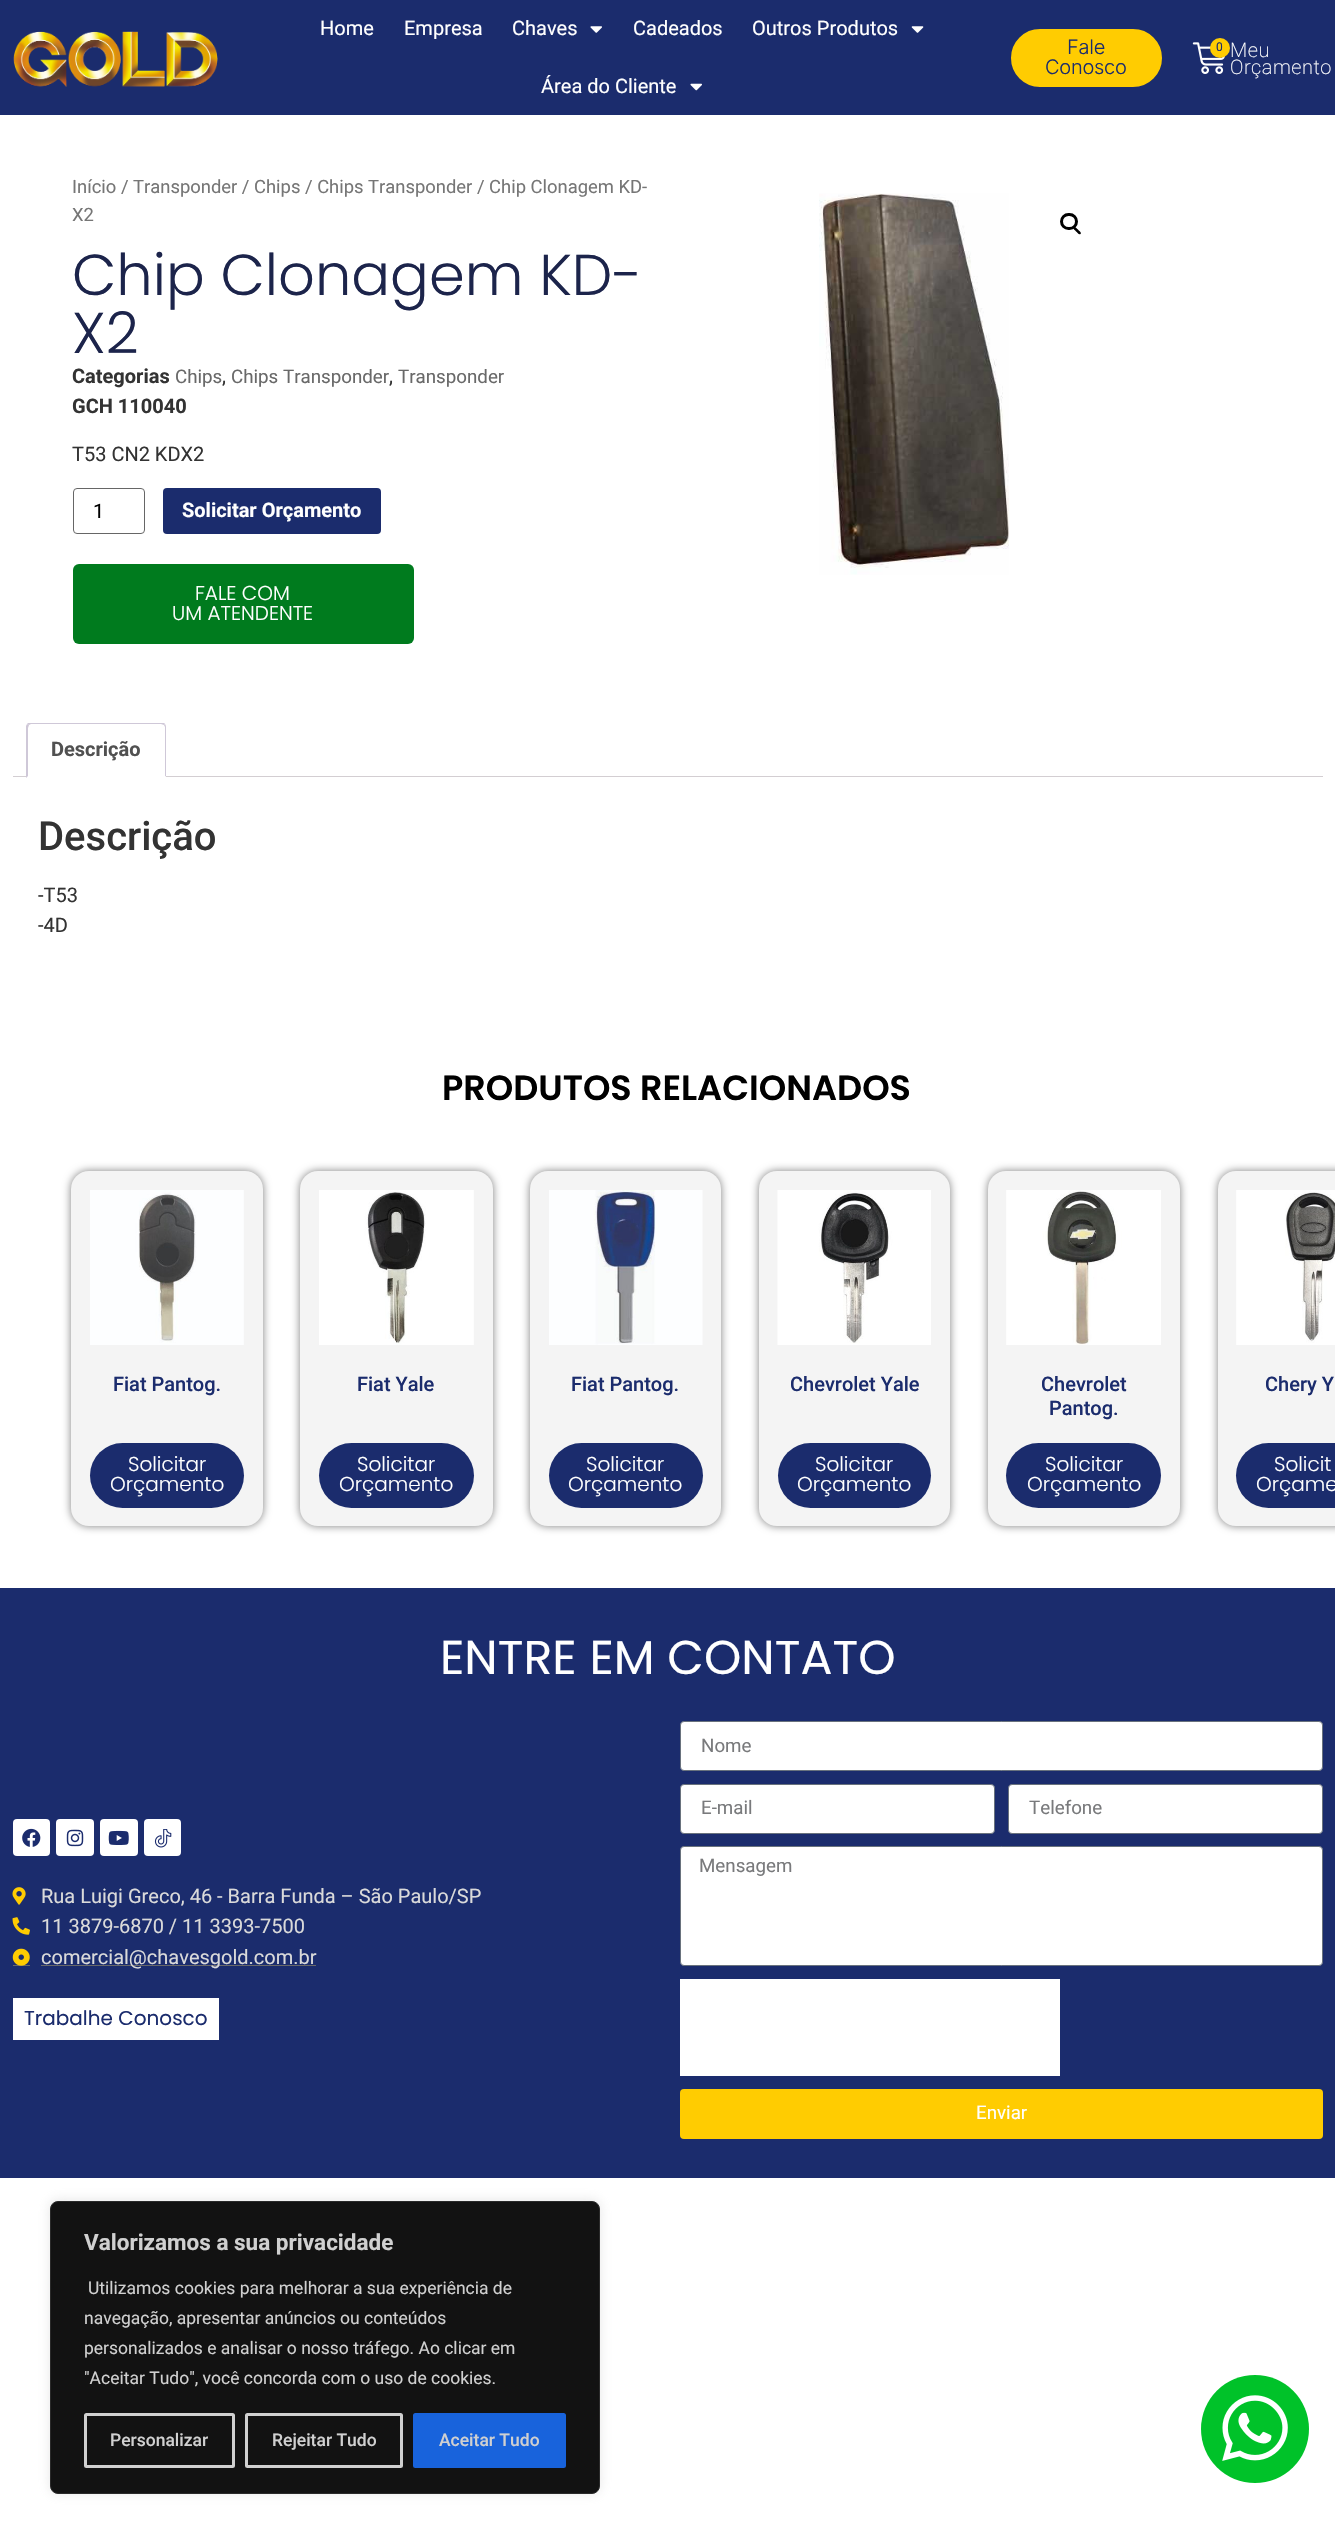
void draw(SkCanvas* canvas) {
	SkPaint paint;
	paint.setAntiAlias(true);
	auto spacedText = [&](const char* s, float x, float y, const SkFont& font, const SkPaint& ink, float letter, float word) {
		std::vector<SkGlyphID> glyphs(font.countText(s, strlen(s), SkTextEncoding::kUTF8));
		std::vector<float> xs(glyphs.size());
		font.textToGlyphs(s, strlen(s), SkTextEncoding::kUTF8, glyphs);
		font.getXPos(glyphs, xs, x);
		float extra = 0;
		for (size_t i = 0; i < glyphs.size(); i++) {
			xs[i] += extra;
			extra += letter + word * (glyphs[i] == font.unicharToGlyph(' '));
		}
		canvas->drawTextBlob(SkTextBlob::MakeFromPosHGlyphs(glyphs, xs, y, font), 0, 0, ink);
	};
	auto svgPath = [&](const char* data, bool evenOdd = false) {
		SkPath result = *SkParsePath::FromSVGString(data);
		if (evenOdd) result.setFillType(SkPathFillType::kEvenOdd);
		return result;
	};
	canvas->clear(0xffffffff);
	paint.setColor(0xff1b2c6d);
	canvas->drawRect(SkRect::MakeXYWH(0, 0, 1335, 115), paint);
	canvas->drawImageRect(SkImages::DeferredFromEncodedData(SkData::MakeFromFileName("img1.png")), SkRect::MakeXYWH(13, 31, 205, 56), SkSamplingOptions());
	SkFont f1(fontMgr->matchFamilyStyle("Roboto", SkFontStyle::Normal()), 20);
	f1.setSubpixel(true);
	paint.setColor(0xffffffff);
	canvas->drawString("Home", 320, 35, f1, paint);
	canvas->drawString("Empresa", 404, 35, f1, paint);
	canvas->drawString("Chaves", 512, 35, f1, paint);
	canvas->drawImageRect(SkImages::DeferredFromEncodedData(SkData::MakeFromFileName("img2.png")), SkRect::MakeXYWH(590, 26, 12, 7), SkSamplingOptions());
	canvas->drawString("Cadeados", 633, 35, f1, paint);
	canvas->drawString("Outros Produtos", 752, 35, f1, paint);
	canvas->drawImageRect(SkImages::DeferredFromEncodedData(SkData::MakeFromFileName("img3.png")), SkRect::MakeXYWH(911, 26, 13, 7), SkSamplingOptions());
	canvas->drawString("Área do Cliente", 541, 93, f1, paint);
	canvas->drawImageRect(SkImages::DeferredFromEncodedData(SkData::MakeFromFileName("img4.png")), SkRect::MakeXYWH(690, 83, 12, 8), SkSamplingOptions());
	paint.setColor(0xffffcc01);
	canvas->drawRoundRect(SkRect::MakeXYWH(1009.5, 27.5, 154, 61), 30.5, 30.5, paint);
	paint.setStroke(true);
	paint.setStrokeWidth(3);
	paint.setColor(0xff1b2c6d);
	canvas->drawRoundRect(SkRect::MakeXYWH(1009.5, 27.5, 154, 61), 30.5, 30.5, paint);
	SkFont f2(fontMgr->matchFamilyStyle("Inter", SkFontStyle(300, SkFontStyle::kNormal_Width, SkFontStyle::kUpright_Slant)), 20);
	f2.setSubpixel(true);
	paint.setStroke(false);
	spacedText("Fale", 1067, 54, f2, paint, -0.25, 0);
	spacedText("Conosco", 1045, 74, f2, paint, -0.25, 0);
	canvas->drawImageRect(SkImages::DeferredFromEncodedData(SkData::MakeFromFileName("img5.png")), SkRect::MakeXYWH(1192, 42, 33, 32), SkSamplingOptions());
	paint.setColor(0xffffcc01);
	canvas->drawCircle(1220, 48, 10, paint);
	SkFont f3(fontMgr->matchFamilyStyle("Roboto", SkFontStyle::Normal()), 12);
	f3.setSubpixel(true);
	paint.setColor(0xff1b2c6d);
	canvas->drawString("0", 1216, 51, f3, paint);
	SkFont f4(fontMgr->matchFamilyStyle("Roboto", SkFontStyle(200, SkFontStyle::kNormal_Width, SkFontStyle::kUpright_Slant)), 20);
	f4.setSubpixel(true);
	paint.setColor(0xffffffff);
	spacedText("Meu", 1230, 57, f4, paint, 0.5, 0);
	spacedText("Orçamento", 1230, 74, f4, paint, 0.5, 0);
	SkFont f5(fontMgr->matchFamilyStyle("Roboto", SkFontStyle::Normal()), 18.4);
	f5.setSubpixel(true);
	paint.setColor(0xff767676);
	canvas->drawString("Início / Transponder / Chips / Chips Transponder / Chip Clonagem KD-", 72, 193, f5, paint);
	canvas->drawString("X2", 72, 221, f5, paint);
	SkFont f6(fontMgr->matchFamilyStyle("Poppins", SkFontStyle(300, SkFontStyle::kNormal_Width, SkFontStyle::kUpright_Slant)), 57.5);
	f6.setSubpixel(true);
	paint.setColor(0xff1c244b);
	canvas->drawString("Chip Clonagem KD-", 72, 295, f6, paint);
	canvas->drawString("X2", 72, 353, f6, paint);
	SkFont f7(fontMgr->matchFamilyStyle("Roboto", SkFontStyle::Bold()), 20);
	f7.setSubpixel(true);
	paint.setColor(0xff333333);
	canvas->drawString("Categorias", 72, 383, f7, paint);
	SkFont f8(fontMgr->matchFamilyStyle("Roboto", SkFontStyle::Normal()), 18.75);
	f8.setSubpixel(true);
	paint.setColor(0xff696969);
	canvas->drawString("Chips", 175, 383, f8, paint);
	paint.setColor(0xff333333);
	canvas->drawString(",", 222, 383, f1, paint);
	paint.setColor(0xff696969);
	canvas->drawString("Chips Transponder", 231, 383, f8, paint);
	paint.setColor(0xff333333);
	canvas->drawString(",", 389, 383, f1, paint);
	paint.setColor(0xff696969);
	canvas->drawString("Transponder", 398, 383, f8, paint);
	paint.setColor(0xff333333);
	canvas->drawString("GCH 110040", 72, 413, f7, paint);
	canvas->drawString("T53 CN2 KDX2", 72, 461, f1, paint);
	paint.setStroke(true);
	paint.setStrokeWidth(1);
	paint.setColor(0xff666666);
	canvas->drawRoundRect(SkRect::MakeXYWH(73.5, 488.5, 71, 45), 3.5, 3.5, paint);
	paint.setStroke(false);
	paint.setColor(0xff000000);
	canvas->drawString("1", 93, 518, f1, paint);
	paint.setColor(0xff1b2c6d);
	canvas->drawRoundRect(SkRect::MakeXYWH(163, 488, 218, 46), 4, 4, paint);
	paint.setColor(0xffffffff);
	canvas->drawString("Solicitar Orçamento", 182, 517, f7, paint);
	paint.setColor(0xff007b1e);
	canvas->drawRoundRect(SkRect::MakeXYWH(73, 564, 341, 80), 6, 6, paint);
	SkFont f9(fontMgr->matchFamilyStyle("Poppins", SkFontStyle(300, SkFontStyle::kNormal_Width, SkFontStyle::kUpright_Slant)), 20);
	f9.setSubpixel(true);
	paint.setColor(0xffffffff);
	canvas->drawString("FALE COM", 195, 600, f9, paint);
	canvas->drawString("UM ATENDENTE", 172, 620, f9, paint);
	canvas->drawImageRect(SkImages::DeferredFromEncodedData(SkData::MakeFromFileName("img6.png")), SkRect::MakeXYWH(819, 193, 190, 382), SkSamplingOptions());
	paint.setStroke(true);
	paint.setStrokeWidth(3);
	paint.setColor(0xff000000);
	canvas->drawRoundRect(SkRect::MakeXYWH(1061.5, 214.5, 15, 14), 7, 7, paint);
	paint.setStroke(false);
	canvas->drawPath(svgPath("M1073.5 227C1075 225.5 1077 229 1078 229.5C1078.5 230.5 1082 232.5 1080.5 234C1079 235.5 1077 232 1076 231.5C1075.5 230.5 1072 228.5 1073.5 227Z"), paint);
	paint.setColor(0xffd3ced2);
	canvas->drawRect(SkRect::MakeXYWH(13, 776, 1310, 1), paint);
	paint.setColor(0xffffffff);
	canvas->drawPath(svgPath("M31 723H161C164 723 166 725 166 728V778H26V728C26 725 28 723 31 723Z"), paint);
	canvas->save();
	canvas->clipRect(SkRect::MakeXYWH(13, 723, 1310, 55));
	paint.setColor(0xffcfc8d8);
	canvas->drawPath(svgPath("M31 724L29 725L27 724L29 722H141C149 722 160 717 165 724L164 725L161 724Z"), paint);
	canvas->restore();
	canvas->drawPath(svgPath("M165 724C166 725 166 727 166 728V777L165 776V727L164 725Z"), paint);
	paint.setColor(0xffffffff);
	canvas->drawPath(svgPath("M166 777L26 778L28 776H165Z"), paint);
	paint.setColor(0xffcfc8d8);
	canvas->drawPath(svgPath("M26 778V726L27 724L29 725L28 728V776Z"), paint);
	paint.setColor(0xff515151);
	canvas->drawString("Descrição", 51, 756, f7, paint);
	SkFont f10(fontMgr->matchFamilyStyle("Roboto", SkFontStyle(500, SkFontStyle::kNormal_Width, SkFontStyle::kUpright_Slant)), 40);
	f10.setSubpixel(true);
	paint.setColor(0xff333333);
	canvas->drawString("Descrição", 38, 850, f10, paint);
	canvas->drawString("-T53", 38, 902, f1, paint);
	canvas->drawString("-4D", 38, 932, f1, paint);
	SkFont f11(fontMgr->matchFamilyStyle("Poppins", SkFontStyle(600, SkFontStyle::kNormal_Width, SkFontStyle::kUpright_Slant)), 35);
	f11.setSubpixel(true);
	paint.setColor(0xff000000);
	canvas->drawString("PRODUTOS RELACIONADOS", 442, 1100, f11, paint);
	paint.setColor(0x80000000);
	paint.setMaskFilter(SkMaskFilter::MakeBlur(kNormal_SkBlurStyle, 4));
	canvas->drawRoundRect(SkRect::MakeXYWH(71, 1171, 192, 355), 18, 18, paint);
	paint.setMaskFilter(nullptr);
	paint.setColor(0xfff4f4f4);
	canvas->drawRoundRect(SkRect::MakeXYWH(71, 1171, 192, 355), 18, 18, paint);
	canvas->drawImageRect(SkImages::DeferredFromEncodedData(SkData::MakeFromFileName("img7.png")), SkRect::MakeXYWH(90, 1190, 154, 155), SkSamplingOptions());
	SkFont f12(fontMgr->matchFamilyStyle("Roboto", SkFontStyle(500, SkFontStyle::kNormal_Width, SkFontStyle::kUpright_Slant)), 20);
	f12.setSubpixel(true);
	paint.setColor(0xff1b2c6d);
	canvas->drawString("Fiat Pantog.", 113, 1391, f12, paint);
	canvas->drawRoundRect(SkRect::MakeXYWH(90, 1443, 154, 65), 32.5, 32.5, paint);
	paint.setColor(0xffffffff);
	canvas->drawString("Solicitar", 128, 1471, f9, paint);
	canvas->drawString("Orçamento", 110, 1491, f9, paint);
	paint.setColor(0x80000000);
	paint.setMaskFilter(SkMaskFilter::MakeBlur(kNormal_SkBlurStyle, 4));
	canvas->drawRoundRect(SkRect::MakeXYWH(300, 1171, 193, 355), 18, 18, paint);
	paint.setMaskFilter(nullptr);
	paint.setColor(0xfff4f4f4);
	canvas->drawRoundRect(SkRect::MakeXYWH(300, 1171, 193, 355), 18, 18, paint);
	canvas->drawImageRect(SkImages::DeferredFromEncodedData(SkData::MakeFromFileName("img8.png")), SkRect::MakeXYWH(319, 1190, 155, 155), SkSamplingOptions());
	paint.setColor(0xff1b2c6d);
	canvas->drawString("Fiat Yale", 357, 1391, f12, paint);
	canvas->drawRoundRect(SkRect::MakeXYWH(319, 1443, 155, 65), 32.5, 32.5, paint);
	paint.setColor(0xffffffff);
	canvas->drawString("Solicitar", 357, 1471, f9, paint);
	canvas->drawString("Orçamento", 339, 1491, f9, paint);
	paint.setColor(0x80000000);
	paint.setMaskFilter(SkMaskFilter::MakeBlur(kNormal_SkBlurStyle, 4));
	canvas->drawRoundRect(SkRect::MakeXYWH(530, 1171, 191, 355), 18, 18, paint);
	paint.setMaskFilter(nullptr);
	paint.setColor(0xfff4f4f4);
	canvas->drawRoundRect(SkRect::MakeXYWH(530, 1171, 191, 355), 18, 18, paint);
	canvas->drawImageRect(SkImages::DeferredFromEncodedData(SkData::MakeFromFileName("img9.png")), SkRect::MakeXYWH(549, 1190, 154, 155), SkSamplingOptions());
	paint.setColor(0xff1b2c6d);
	canvas->drawString("Fiat Pantog.", 571, 1391, f12, paint);
	canvas->drawRoundRect(SkRect::MakeXYWH(549, 1443, 154, 65), 32.5, 32.5, paint);
	paint.setColor(0xffffffff);
	canvas->drawString("Solicitar", 586, 1471, f9, paint);
	canvas->drawString("Orçamento", 568, 1491, f9, paint);
	paint.setColor(0x80000000);
	paint.setMaskFilter(SkMaskFilter::MakeBlur(kNormal_SkBlurStyle, 4));
	canvas->drawRoundRect(SkRect::MakeXYWH(759, 1171, 191, 355), 18, 18, paint);
	paint.setMaskFilter(nullptr);
	paint.setColor(0xfff4f4f4);
	canvas->drawRoundRect(SkRect::MakeXYWH(759, 1171, 191, 355), 18, 18, paint);
	canvas->drawImageRect(SkImages::DeferredFromEncodedData(SkData::MakeFromFileName("img10.png")), SkRect::MakeXYWH(777, 1190, 154, 155), SkSamplingOptions());
	paint.setColor(0xff1b2c6d);
	canvas->drawString("Chevrolet Yale", 790, 1391, f12, paint);
	canvas->drawRoundRect(SkRect::MakeXYWH(778, 1443, 153, 65), 32.5, 32.5, paint);
	paint.setColor(0xffffffff);
	canvas->drawString("Solicitar", 815, 1471, f9, paint);
	canvas->drawString("Orçamento", 797, 1491, f9, paint);
	paint.setColor(0x80000000);
	paint.setMaskFilter(SkMaskFilter::MakeBlur(kNormal_SkBlurStyle, 4));
	canvas->drawRoundRect(SkRect::MakeXYWH(988, 1171, 192, 355), 18, 18, paint);
	paint.setMaskFilter(nullptr);
	paint.setColor(0xfff4f4f4);
	canvas->drawRoundRect(SkRect::MakeXYWH(988, 1171, 192, 355), 18, 18, paint);
	canvas->drawImageRect(SkImages::DeferredFromEncodedData(SkData::MakeFromFileName("img11.png")), SkRect::MakeXYWH(1006, 1190, 155, 155), SkSamplingOptions());
	paint.setColor(0xff1b2c6d);
	canvas->drawString("Chevrolet", 1041, 1391, f12, paint);
	canvas->drawString("Pantog.", 1049, 1415, f12, paint);
	canvas->drawRoundRect(SkRect::MakeXYWH(1006, 1443, 155, 65), 32.5, 32.5, paint);
	paint.setColor(0xffffffff);
	canvas->drawString("Solicitar", 1045, 1471, f9, paint);
	canvas->drawString("Orçamento", 1027, 1491, f9, paint);
	paint.setColor(0x80000000);
	paint.setMaskFilter(SkMaskFilter::MakeBlur(kNormal_SkBlurStyle, 4));
	canvas->drawRoundRect(SkRect::MakeXYWH(1218, 1171, 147, 355), 18, 18, paint);
	paint.setMaskFilter(nullptr);
	paint.setColor(0xfff4f4f4);
	canvas->drawRoundRect(SkRect::MakeXYWH(1218, 1171, 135, 355), 18, 18, paint);
	canvas->drawImageRect(SkImages::DeferredFromEncodedData(SkData::MakeFromFileName("img12.png")), SkRect::MakeXYWH(1236, 1190, 99, 155), SkSamplingOptions());
	paint.setColor(0xff1b2c6d);
	canvas->drawString("Chery Y", 1265, 1391, f12, paint);
	canvas->drawRoundRect(SkRect::MakeXYWH(1236, 1443, 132, 65), 32.5, 32.5, paint);
	paint.setColor(0xffffffff);
	canvas->drawString("Solicit", 1274, 1471, f9, paint);
	canvas->drawString("Orçame", 1256, 1491, f9, paint);
	paint.setColor(0xff1b2c6d);
	canvas->drawRect(SkRect::MakeXYWH(0, 1588, 1335, 590), paint);
	SkFont f13(fontMgr->matchFamilyStyle("Poppins", SkFontStyle::Normal()), 47.5);
	f13.setSubpixel(true);
	paint.setColor(0xffffffff);
	canvas->drawString("ENTRE EM CONTATO", 440, 1674, f13, paint);
	canvas->drawRoundRect(SkRect::MakeXYWH(13, 1819, 37, 37), 4, 4, paint);
	canvas->drawImageRect(SkImages::DeferredFromEncodedData(SkData::MakeFromFileName("img13.png")), SkRect::MakeXYWH(22, 1828, 19, 19), SkSamplingOptions());
	canvas->drawRoundRect(SkRect::MakeXYWH(56, 1819, 38, 37), 4, 4, paint);
	canvas->drawImageRect(SkImages::DeferredFromEncodedData(SkData::MakeFromFileName("img14.png")), SkRect::MakeXYWH(66, 1829, 18, 18), SkSamplingOptions());
	canvas->drawRoundRect(SkRect::MakeXYWH(100, 1819, 38, 37), 4, 4, paint);
	canvas->drawImageRect(SkImages::DeferredFromEncodedData(SkData::MakeFromFileName("img15.png")), SkRect::MakeXYWH(108, 1830, 21, 15), SkSamplingOptions());
	canvas->drawRoundRect(SkRect::MakeXYWH(144, 1819, 37, 37), 4, 4, paint);
	canvas->drawImageRect(SkImages::DeferredFromEncodedData(SkData::MakeFromFileName("img16.png")), SkRect::MakeXYWH(154, 1829, 18, 19), SkSamplingOptions());
	canvas->drawImageRect(SkImages::DeferredFromEncodedData(SkData::MakeFromFileName("img17.png")), SkRect::MakeXYWH(12, 1887, 14, 18), SkSamplingOptions());
	paint.setColor(0xffdadada);
	canvas->drawString("Rua Luigi Greco, 46 - Barra Funda – São Paulo/SP", 41, 1903, f1, paint);
	canvas->drawImageRect(SkImages::DeferredFromEncodedData(SkData::MakeFromFileName("img18.png")), SkRect::MakeXYWH(12, 1917, 18, 18), SkSamplingOptions());
	canvas->drawString("11 3879-6870 / 11 3393-7500", 41, 1933, f1, paint);
	paint.setColor(0xff696969);
	canvas->drawRect(SkRect::MakeXYWH(13, 1965, 17, 1), paint);
	canvas->drawImageRect(SkImages::DeferredFromEncodedData(SkData::MakeFromFileName("img19.png")), SkRect::MakeXYWH(12, 1948, 18, 18), SkSamplingOptions());
	canvas->drawRect(SkRect::MakeXYWH(41, 1965, 275, 1), paint);
	paint.setColor(0xffdadada);
	canvas->drawString("comercial@chavesgold.com.br", 41, 1964, f1, paint);
	paint.setColor(0xffffffff);
	canvas->drawRect(SkRect::MakeXYWH(13, 1998, 206, 42), paint);
	SkFont f14(fontMgr->matchFamilyStyle("Poppins", SkFontStyle::Normal()), 20);
	f14.setSubpixel(true);
	paint.setColor(0xff1b2c6d);
	canvas->drawString("Trabalhe Conosco", 24, 2025, f14, paint);
	paint.setColor(0xffffffff);
	canvas->drawRoundRect(SkRect::MakeXYWH(680.5, 1721.5, 642, 49), 3.5, 3.5, paint);
	paint.setStroke(true);
	paint.setStrokeWidth(1);
	paint.setColor(0xff69727d);
	canvas->drawRoundRect(SkRect::MakeXYWH(680.5, 1721.5, 642, 49), 3.5, 3.5, paint);
	paint.setStroke(false);
	paint.setColor(0xff797a7c);
	canvas->drawString("Nome", 701, 1752, f8, paint);
	paint.setColor(0xffffffff);
	canvas->drawRoundRect(SkRect::MakeXYWH(680.5, 1784.5, 314, 49), 3.5, 3.5, paint);
	paint.setStroke(true);
	paint.setColor(0xff69727d);
	canvas->drawRoundRect(SkRect::MakeXYWH(680.5, 1784.5, 314, 49), 3.5, 3.5, paint);
	paint.setStroke(false);
	paint.setColor(0xff797a7c);
	canvas->drawString("E-mail", 701, 1814, f8, paint);
	paint.setColor(0xffffffff);
	canvas->drawRoundRect(SkRect::MakeXYWH(1008.5, 1784.5, 314, 49), 3.5, 3.5, paint);
	paint.setStroke(true);
	paint.setColor(0xff69727d);
	canvas->drawRoundRect(SkRect::MakeXYWH(1008.5, 1784.5, 314, 49), 3.5, 3.5, paint);
	paint.setStroke(false);
	paint.setColor(0xff797a7c);
	canvas->drawString("Telefone", 1029, 1814, f8, paint);
	paint.setColor(0xffffffff);
	canvas->drawRoundRect(SkRect::MakeXYWH(680.5, 1846.5, 642, 119), 3.5, 3.5, paint);
	paint.setStroke(true);
	paint.setColor(0xff69727d);
	canvas->drawRoundRect(SkRect::MakeXYWH(680.5, 1846.5, 642, 119), 3.5, 3.5, paint);
	paint.setStroke(false);
	paint.setColor(0xff797a7c);
	canvas->drawString("Mensagem", 699, 1872, f8, paint);
	paint.setColor(0xffffffff);
	canvas->drawRect(SkRect::MakeXYWH(680, 1979, 380, 97), paint);
	paint.setColor(0xffffcc01);
	canvas->drawRoundRect(SkRect::MakeXYWH(680, 2089, 643, 50), 4, 4, paint);
	paint.setColor(0xffffffff);
	canvas->drawString("Enviar", 976, 2119, f8, paint);
	paint.setColor(0xff00c229);
	canvas->drawCircle(1255, 2429, 54, paint);
	canvas->drawImageRect(SkImages::DeferredFromEncodedData(SkData::MakeFromFileName("img20.png")), SkRect::MakeXYWH(1222, 2395, 66, 66), SkSamplingOptions());
	paint.setColor(0x4dacabab);
	paint.setMaskFilter(SkMaskFilter::MakeBlur(kNormal_SkBlurStyle, 6));
	canvas->drawRoundRect(SkRect::MakeXYWH(50, 2200, 550, 293), 8, 8, paint);
	paint.setMaskFilter(nullptr);
	paint.setColor(0xff121212);
	canvas->drawRoundRect(SkRect::MakeXYWH(50.5, 2201.5, 549, 292), 7.5, 7.5, paint);
	paint.setStroke(true);
	paint.setColor(0xff2a2a2a);
	canvas->drawRoundRect(SkRect::MakeXYWH(50.5, 2201.5, 549, 292), 7.5, 7.5, paint);
	SkFont f15(fontMgr->matchFamilyStyle("Roboto", SkFontStyle::Bold()), 22.5);
	f15.setSubpixel(true);
	paint.setStroke(false);
	paint.setColor(0xffd0d0d0);
	canvas->drawString("Valorizamos a sua privacidade", 84, 2250, f15, paint);
	SkFont f16(fontMgr->matchFamilyStyle("Roboto", SkFontStyle::Normal()), 17.5);
	f16.setSubpixel(true);
	canvas->drawString("Utilizamos cookies para melhorar a sua experiência de", 88, 2294, f16, paint);
	canvas->drawString("navegação, apresentar anúncios ou conteúdos", 84, 2324, f16, paint);
	canvas->drawString("personalizados e analisar o nosso tráfego. Ao clicar em", 84, 2354, f16, paint);
	canvas->drawString("\"Aceitar Tudo\", você concorda com o uso de cookies.", 84, 2384, f16, paint);
	paint.setStroke(true);
	paint.setStrokeWidth(3);
	canvas->drawRoundRect(SkRect::MakeXYWH(85.5, 2414.5, 148, 52), 1, 1, paint);
	SkFont f17(fontMgr->matchFamilyStyle("Roboto", SkFontStyle(500, SkFontStyle::kNormal_Width, SkFontStyle::kUpright_Slant)), 17.5);
	f17.setSubpixel(true);
	paint.setStroke(false);
	canvas->drawString("Personalizar", 110, 2446, f17, paint);
	paint.setStroke(true);
	canvas->drawRoundRect(SkRect::MakeXYWH(246.5, 2414.5, 155, 52), 1, 1, paint);
	paint.setStroke(false);
	canvas->drawString("Rejeitar Tudo", 272, 2446, f17, paint);
	paint.setColor(0xff1863dc);
	canvas->drawRoundRect(SkRect::MakeXYWH(414.5, 2414.5, 150, 52), 1, 1, paint);
	paint.setStroke(true);
	canvas->drawRoundRect(SkRect::MakeXYWH(414.5, 2414.5, 150, 52), 1, 1, paint);
	paint.setStroke(false);
	paint.setColor(0xffd0d0d0);
	canvas->drawString("Aceitar Tudo", 439, 2446, f17, paint);
}
